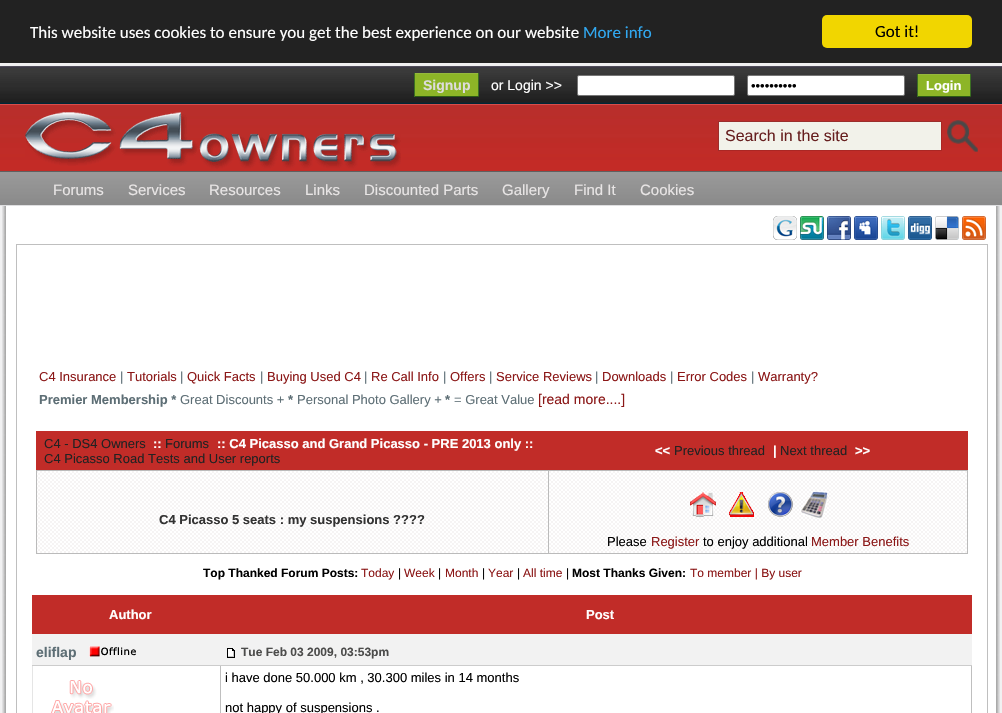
void draw(SkCanvas* canvas) {
	SkPaint paint;
	paint.setAntiAlias(true);
	canvas->clear(0xfff1f1f2);
	paint.setColor(0xff222222);
	canvas->drawRect(SkRect::MakeXYWH(0, 0, 1002, 63), paint);
	SkFont f1(fontMgr->matchFamilyStyle("Carlito", SkFontStyle::Normal()), 17);
	f1.setSubpixel(true);
	paint.setColor(0xffffffff);
	canvas->drawString("This website uses cookies to ensure you get the best experience on our website", 30, 38, f1, paint);
	paint.setColor(0xff31a8f0);
	canvas->drawString("More info", 583, 38, f1, paint);
	paint.setColor(0xfff1d600);
	canvas->drawRoundRect(SkRect::MakeXYWH(822, 15, 150, 33), 5, 5, paint);
	paint.setColor(0xff000000);
	canvas->drawString("Got it!", 875, 37, f1, paint);
	canvas->drawImageRect(SkImages::DeferredFromEncodedData(SkData::MakeFromFileName("img1.png")), SkRect::MakeXYWH(0, 66, 1002, 140), SkSamplingOptions());
	paint.setColor(0xff8db527);
	canvas->drawRect(SkRect::MakeXYWH(415, 74, 63, 22), paint);
	SkFont f2(fontMgr->matchFamilyStyle("Liberation Sans", SkFontStyle::Bold()), 14);
	f2.setSubpixel(true);
	paint.setColor(0xffdedcdc);
	canvas->drawString("Signup", 423, 90, f2, paint);
	paint.setColor(0xff95b83d);
	canvas->drawRect(SkRect::MakeXYWH(414, 73, 65, 1), paint);
	paint.setColor(0xff3b6e22);
	canvas->drawRect(SkRect::MakeXYWH(478, 73, 1, 24), paint);
	paint.setColor(0xff2c5a15);
	canvas->drawRect(SkRect::MakeXYWH(414, 96, 65, 1), paint);
	paint.setColor(0xff3b6e22);
	canvas->drawRect(SkRect::MakeXYWH(414, 73, 1, 24), paint);
	SkFont f3(fontMgr->matchFamilyStyle("Liberation Sans", SkFontStyle::Normal()), 14);
	f3.setSubpixel(true);
	paint.setColor(0xffffffff);
	canvas->drawString("or Login >>", 491, 90, f3, paint);
	canvas->drawRoundRect(SkRect::MakeXYWH(577.5, 75.5, 157, 20), 1.5, 1.5, paint);
	paint.setStroke(true);
	paint.setStrokeWidth(1);
	paint.setColor(0xff767676);
	canvas->drawRoundRect(SkRect::MakeXYWH(577.5, 75.5, 157, 20), 1.5, 1.5, paint);
	paint.setStroke(false);
	paint.setColor(0xffffffff);
	canvas->drawRoundRect(SkRect::MakeXYWH(747.5, 75.5, 157, 20), 1.5, 1.5, paint);
	paint.setStroke(true);
	paint.setColor(0xff767676);
	canvas->drawRoundRect(SkRect::MakeXYWH(747.5, 75.5, 157, 20), 1.5, 1.5, paint);
	SkFont f4(fontMgr->matchFamilyStyle("Liberation Sans", SkFontStyle::Normal()), 13);
	f4.setSubpixel(true);
	paint.setStroke(false);
	paint.setColor(0xff000000);
	canvas->drawString("••••••••••", 751, 90, f4, paint);
	paint.setColor(0xff8db527);
	canvas->drawRect(SkRect::MakeXYWH(918, 75, 52, 21), paint);
	paint.setColor(0xff95b83d);
	canvas->drawRect(SkRect::MakeXYWH(917, 74, 54, 1), paint);
	paint.setColor(0xff3b6e22);
	canvas->drawRect(SkRect::MakeXYWH(970, 74, 1, 23), paint);
	paint.setColor(0xff2c5a15);
	canvas->drawRect(SkRect::MakeXYWH(917, 96, 54, 1), paint);
	paint.setColor(0xff3b6e22);
	canvas->drawRect(SkRect::MakeXYWH(917, 74, 1, 23), paint);
	SkFont f5(fontMgr->matchFamilyStyle("Liberation Sans", SkFontStyle::Bold()), 13);
	f5.setSubpixel(true);
	paint.setColor(0xffffffff);
	canvas->drawString("Login", 926, 90, f5, paint);
	canvas->drawImageRect(SkImages::DeferredFromEncodedData(SkData::MakeFromFileName("img2.png")), SkRect::MakeXYWH(25, 112, 376, 57), SkSamplingOptions());
	paint.setColor(0xfff2f2ea);
	canvas->drawRect(SkRect::MakeXYWH(719, 122, 222, 28), paint);
	paint.setColor(0xff9b2e2c);
	canvas->drawRect(SkRect::MakeXYWH(718, 121, 224, 1), paint);
	paint.setColor(0xffaa2724);
	canvas->drawRect(SkRect::MakeXYWH(941, 121, 1, 30), paint);
	canvas->drawRect(SkRect::MakeXYWH(718, 150, 224, 1), paint);
	paint.setColor(0xff9b2e2c);
	canvas->drawRect(SkRect::MakeXYWH(718, 121, 1, 30), paint);
	SkFont f6(fontMgr->matchFamilyStyle("Liberation Sans", SkFontStyle::Normal()), 16);
	f6.setSubpixel(true);
	paint.setColor(0xff671f1f);
	canvas->drawString("Search in the site", 725, 141, f6, paint);
	canvas->drawImageRect(SkImages::DeferredFromEncodedData(SkData::MakeFromFileName("img3.png")), SkRect::MakeXYWH(947, 120, 31, 32), SkSamplingOptions());
	SkFont f7(fontMgr->matchFamilyStyle("Liberation Sans", SkFontStyle::Normal()), 15);
	f7.setSubpixel(true);
	paint.setColor(0xffe8e5e5);
	canvas->drawString("Forums", 53, 195, f7, paint);
	canvas->drawString("Services", 128, 195, f7, paint);
	canvas->drawString("Resources", 209, 195, f7, paint);
	canvas->drawString("Links", 305, 195, f7, paint);
	canvas->drawString("Discounted Parts", 364, 195, f7, paint);
	canvas->drawString("Gallery", 502, 195, f7, paint);
	canvas->drawString("Find It", 574, 195, f7, paint);
	canvas->drawString("Cookies", 640, 195, f7, paint);
	canvas->drawImageRect(SkImages::DeferredFromEncodedData(SkData::MakeFromFileName("img4.png")), SkRect::MakeXYWH(2, 206, 998, 507), SkSamplingOptions());
	canvas->drawImageRect(SkImages::DeferredFromEncodedData(SkData::MakeFromFileName("img5.png")), SkRect::MakeXYWH(773, 216, 24, 24), SkSamplingOptions());
	canvas->drawImageRect(SkImages::DeferredFromEncodedData(SkData::MakeFromFileName("img6.png")), SkRect::MakeXYWH(800, 216, 24, 24), SkSamplingOptions());
	canvas->drawImageRect(SkImages::DeferredFromEncodedData(SkData::MakeFromFileName("img7.png")), SkRect::MakeXYWH(827, 216, 24, 24), SkSamplingOptions());
	canvas->drawImageRect(SkImages::DeferredFromEncodedData(SkData::MakeFromFileName("img8.png")), SkRect::MakeXYWH(854, 216, 24, 24), SkSamplingOptions());
	canvas->drawImageRect(SkImages::DeferredFromEncodedData(SkData::MakeFromFileName("img9.png")), SkRect::MakeXYWH(881, 216, 24, 24), SkSamplingOptions());
	canvas->drawImageRect(SkImages::DeferredFromEncodedData(SkData::MakeFromFileName("img10.png")), SkRect::MakeXYWH(908, 216, 24, 24), SkSamplingOptions());
	canvas->drawImageRect(SkImages::DeferredFromEncodedData(SkData::MakeFromFileName("img11.png")), SkRect::MakeXYWH(935, 216, 24, 24), SkSamplingOptions());
	canvas->drawImageRect(SkImages::DeferredFromEncodedData(SkData::MakeFromFileName("img12.png")), SkRect::MakeXYWH(962, 216, 24, 24), SkSamplingOptions());
	paint.setStroke(true);
	paint.setColor(0xffbfbfbf);
	canvas->drawRect(SkRect::MakeXYWH(16.5, 244.5, 971, 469), paint);
	paint.setStroke(false);
	paint.setColor(0xff8b1717);
	canvas->drawString("C4 Insurance", 39, 381, f4, paint);
	paint.setColor(0xff5d6e75);
	canvas->drawString("|", 120, 381, f4, paint);
	paint.setColor(0xff8b1717);
	canvas->drawString("Tutorials", 127, 381, f4, paint);
	paint.setColor(0xff5d6e75);
	canvas->drawString("|", 180, 381, f4, paint);
	paint.setColor(0xff8b1717);
	canvas->drawString("Quick Facts", 187, 381, f4, paint);
	paint.setColor(0xff5d6e75);
	canvas->drawString("|", 260, 381, f4, paint);
	paint.setColor(0xff8b1717);
	canvas->drawString("Buying Used C4", 267, 381, f4, paint);
	paint.setColor(0xff5d6e75);
	canvas->drawString("|", 364, 381, f4, paint);
	paint.setColor(0xff8b1717);
	canvas->drawString("Re Call Info", 371, 381, f4, paint);
	paint.setColor(0xff5d6e75);
	canvas->drawString("|", 443, 381, f4, paint);
	paint.setColor(0xff8b1717);
	canvas->drawString("Offers", 450, 381, f4, paint);
	paint.setColor(0xff5d6e75);
	canvas->drawString("|", 489, 381, f4, paint);
	paint.setColor(0xff8b1717);
	canvas->drawString("Service Reviews", 496, 381, f4, paint);
	paint.setColor(0xff5d6e75);
	canvas->drawString("|", 595, 381, f4, paint);
	paint.setColor(0xff8b1717);
	canvas->drawString("Downloads", 602, 381, f4, paint);
	paint.setColor(0xff5d6e75);
	canvas->drawString("|", 670, 381, f4, paint);
	paint.setColor(0xff8b1717);
	canvas->drawString("Error Codes", 677, 381, f4, paint);
	paint.setColor(0xff5d6e75);
	canvas->drawString("|", 751, 381, f4, paint);
	paint.setColor(0xff8b1717);
	canvas->drawString("Warranty?", 758, 381, f4, paint);
	paint.setColor(0xff5d6e75);
	canvas->drawString("Premier Membership *", 39, 404, f5, paint);
	canvas->drawString("Great Discounts +", 180, 404, f4, paint);
	canvas->drawString("*", 288, 404, f5, paint);
	canvas->drawString("Personal Photo Gallery +", 297, 404, f4, paint);
	canvas->drawString("*", 445, 404, f5, paint);
	canvas->drawString("= Great Value", 454, 404, f4, paint);
	paint.setColor(0xff8b1717);
	canvas->drawString("[read more....]", 538, 404, f3, paint);
	paint.setColor(0xffc12c28);
	canvas->drawRect(SkRect::MakeXYWH(36, 431, 932, 39), paint);
	paint.setColor(0xff222222);
	canvas->drawString("C4 - DS4 Owners", 44, 448, f4, paint);
	paint.setColor(0xffffffff);
	canvas->drawString("::", 153, 448, f5, paint);
	paint.setColor(0xff222222);
	canvas->drawString("Forums", 165, 448, f4, paint);
	paint.setColor(0xffffffff);
	canvas->drawString(":: C4 Picasso and Grand Picasso - PRE 2013 only ::", 217, 448, f5, paint);
	paint.setColor(0xff222222);
	canvas->drawString("C4 Picasso Road Tests and User reports", 44, 463, f4, paint);
	paint.setColor(0xffffffff);
	canvas->drawString("<<", 655, 455, f5, paint);
	paint.setColor(0xff222222);
	canvas->drawString("Previous thread", 674, 455, f4, paint);
	paint.setColor(0xffffffff);
	canvas->drawString("|", 773, 455, f5, paint);
	paint.setColor(0xff222222);
	canvas->drawString("Next thread", 780, 455, f4, paint);
	paint.setColor(0xffffffff);
	canvas->drawString(">>", 855, 455, f5, paint);
	canvas->drawImageRect(SkImages::DeferredFromEncodedData(SkData::MakeFromFileName("img13.png")), SkRect::MakeXYWH(37, 471, 511, 82), SkSamplingOptions());
	paint.setColor(0xffbbbbbb);
	canvas->drawRect(SkRect::MakeXYWH(548, 470, 420, 1), paint);
	canvas->drawRect(SkRect::MakeXYWH(967, 470, 1, 84), paint);
	canvas->drawRect(SkRect::MakeXYWH(548, 553, 420, 1), paint);
	canvas->drawRect(SkRect::MakeXYWH(548, 470, 1, 84), paint);
	canvas->drawRect(SkRect::MakeXYWH(36, 470, 513, 1), paint);
	canvas->drawRect(SkRect::MakeXYWH(36, 553, 513, 1), paint);
	canvas->drawRect(SkRect::MakeXYWH(36, 470, 1, 84), paint);
	paint.setColor(0xff333333);
	canvas->drawString("C4 Picasso 5 seats : my suspensions ?\077?\077", 159, 524, f5, paint);
	canvas->drawImageRect(SkImages::DeferredFromEncodedData(SkData::MakeFromFileName("img14.png")), SkRect::MakeXYWH(549, 471, 418, 82), SkSamplingOptions());
	canvas->drawImageRect(SkImages::DeferredFromEncodedData(SkData::MakeFromFileName("img15.png")), SkRect::MakeXYWH(690, 492, 26, 25), SkSamplingOptions());
	canvas->drawImageRect(SkImages::DeferredFromEncodedData(SkData::MakeFromFileName("img16.png")), SkRect::MakeXYWH(729, 492, 25, 25), SkSamplingOptions());
	canvas->drawImageRect(SkImages::DeferredFromEncodedData(SkData::MakeFromFileName("img17.png")), SkRect::MakeXYWH(768, 492, 25, 25), SkSamplingOptions());
	canvas->drawImageRect(SkImages::DeferredFromEncodedData(SkData::MakeFromFileName("img18.png")), SkRect::MakeXYWH(800, 491, 28, 27), SkSamplingOptions());
	paint.setColor(0xff000000);
	canvas->drawString("Please", 607, 546, f4, paint);
	paint.setColor(0xff8b1717);
	canvas->drawString("Register", 651, 546, f4, paint);
	paint.setColor(0xff000000);
	canvas->drawString("to enjoy additional", 703, 546, f4, paint);
	paint.setColor(0xff8b1717);
	canvas->drawString("Member Benefits", 811, 546, f4, paint);
	SkFont f8(fontMgr->matchFamilyStyle("Liberation Sans", SkFontStyle::Bold()), 12);
	f8.setSubpixel(true);
	paint.setColor(0xff000000);
	canvas->drawString("Top Thanked Forum Posts:", 203, 577, f8, paint);
	SkFont f9(fontMgr->matchFamilyStyle("Liberation Sans", SkFontStyle::Normal()), 12);
	f9.setSubpixel(true);
	paint.setColor(0xff8b1717);
	canvas->drawString("Today", 361, 577, f9, paint);
	paint.setColor(0xff000000);
	canvas->drawString("|", 398, 577, f9, paint);
	paint.setColor(0xff8b1717);
	canvas->drawString("Week", 404, 577, f9, paint);
	paint.setColor(0xff000000);
	canvas->drawString("|", 438, 577, f9, paint);
	paint.setColor(0xff8b1717);
	canvas->drawString("Month", 445, 577, f9, paint);
	paint.setColor(0xff000000);
	canvas->drawString("|", 482, 577, f9, paint);
	paint.setColor(0xff8b1717);
	canvas->drawString("Year", 488, 577, f9, paint);
	paint.setColor(0xff000000);
	canvas->drawString("|", 517, 577, f9, paint);
	paint.setColor(0xff8b1717);
	canvas->drawString("All time", 523, 577, f9, paint);
	paint.setColor(0xff000000);
	canvas->drawString("|", 566, 577, f9, paint);
	canvas->drawString("Most Thanks Given:", 572, 577, f8, paint);
	paint.setColor(0xff8b1717);
	canvas->drawString("To member | By user", 690, 577, f9, paint);
	paint.setColor(0xffc12c28);
	canvas->drawRect(SkRect::MakeXYWH(32, 595, 940, 39), paint);
	paint.setColor(0xffffffff);
	canvas->drawString("Author", 109, 619, f5, paint);
	canvas->drawString("Post", 586, 619, f5, paint);
	paint.setColor(0xfff2f2f2);
	canvas->drawRect(SkRect::MakeXYWH(32, 634, 940, 31), paint);
	paint.setColor(0xff5d6e75);
	canvas->drawString("eliflap", 36, 657, f2, paint);
	canvas->drawImageRect(SkImages::DeferredFromEncodedData(SkData::MakeFromFileName("img19.png")), SkRect::MakeXYWH(89, 646, 47, 11), SkSamplingOptions());
	paint.setColor(0xffbfbfbf);
	canvas->drawRect(SkRect::MakeXYWH(220, 665, 1, 48), paint);
	paint.setColor(0xffe5e5e5);
	canvas->drawRect(SkRect::MakeXYWH(32, 665, 1, 48), paint);
	paint.setColor(0xffbfbfbf);
	canvas->drawRect(SkRect::MakeXYWH(971, 665, 1, 48), paint);
	paint.setColor(0xffcccccc);
	canvas->drawRect(SkRect::MakeXYWH(32, 665, 940, 1), paint);
	canvas->drawImageRect(SkImages::DeferredFromEncodedData(SkData::MakeFromFileName("img20.png")), SkRect::MakeXYWH(227, 648, 8, 10), SkSamplingOptions());
	paint.setColor(0xff4c4c4b);
	canvas->drawString("Tue Feb 03 2009, 03:53pm", 241, 656, f8, paint);
	canvas->drawImageRect(SkImages::DeferredFromEncodedData(SkData::MakeFromFileName("img21.png")), SkRect::MakeXYWH(51, 680, 63, 33), SkSamplingOptions());
	paint.setColor(0xff000000);
	canvas->drawString("i have done 50.000 km , 30.300 miles in 14 months", 225, 682, f4, paint);
	canvas->drawString("not happy of suspensions .", 225, 712, f4, paint);
}
